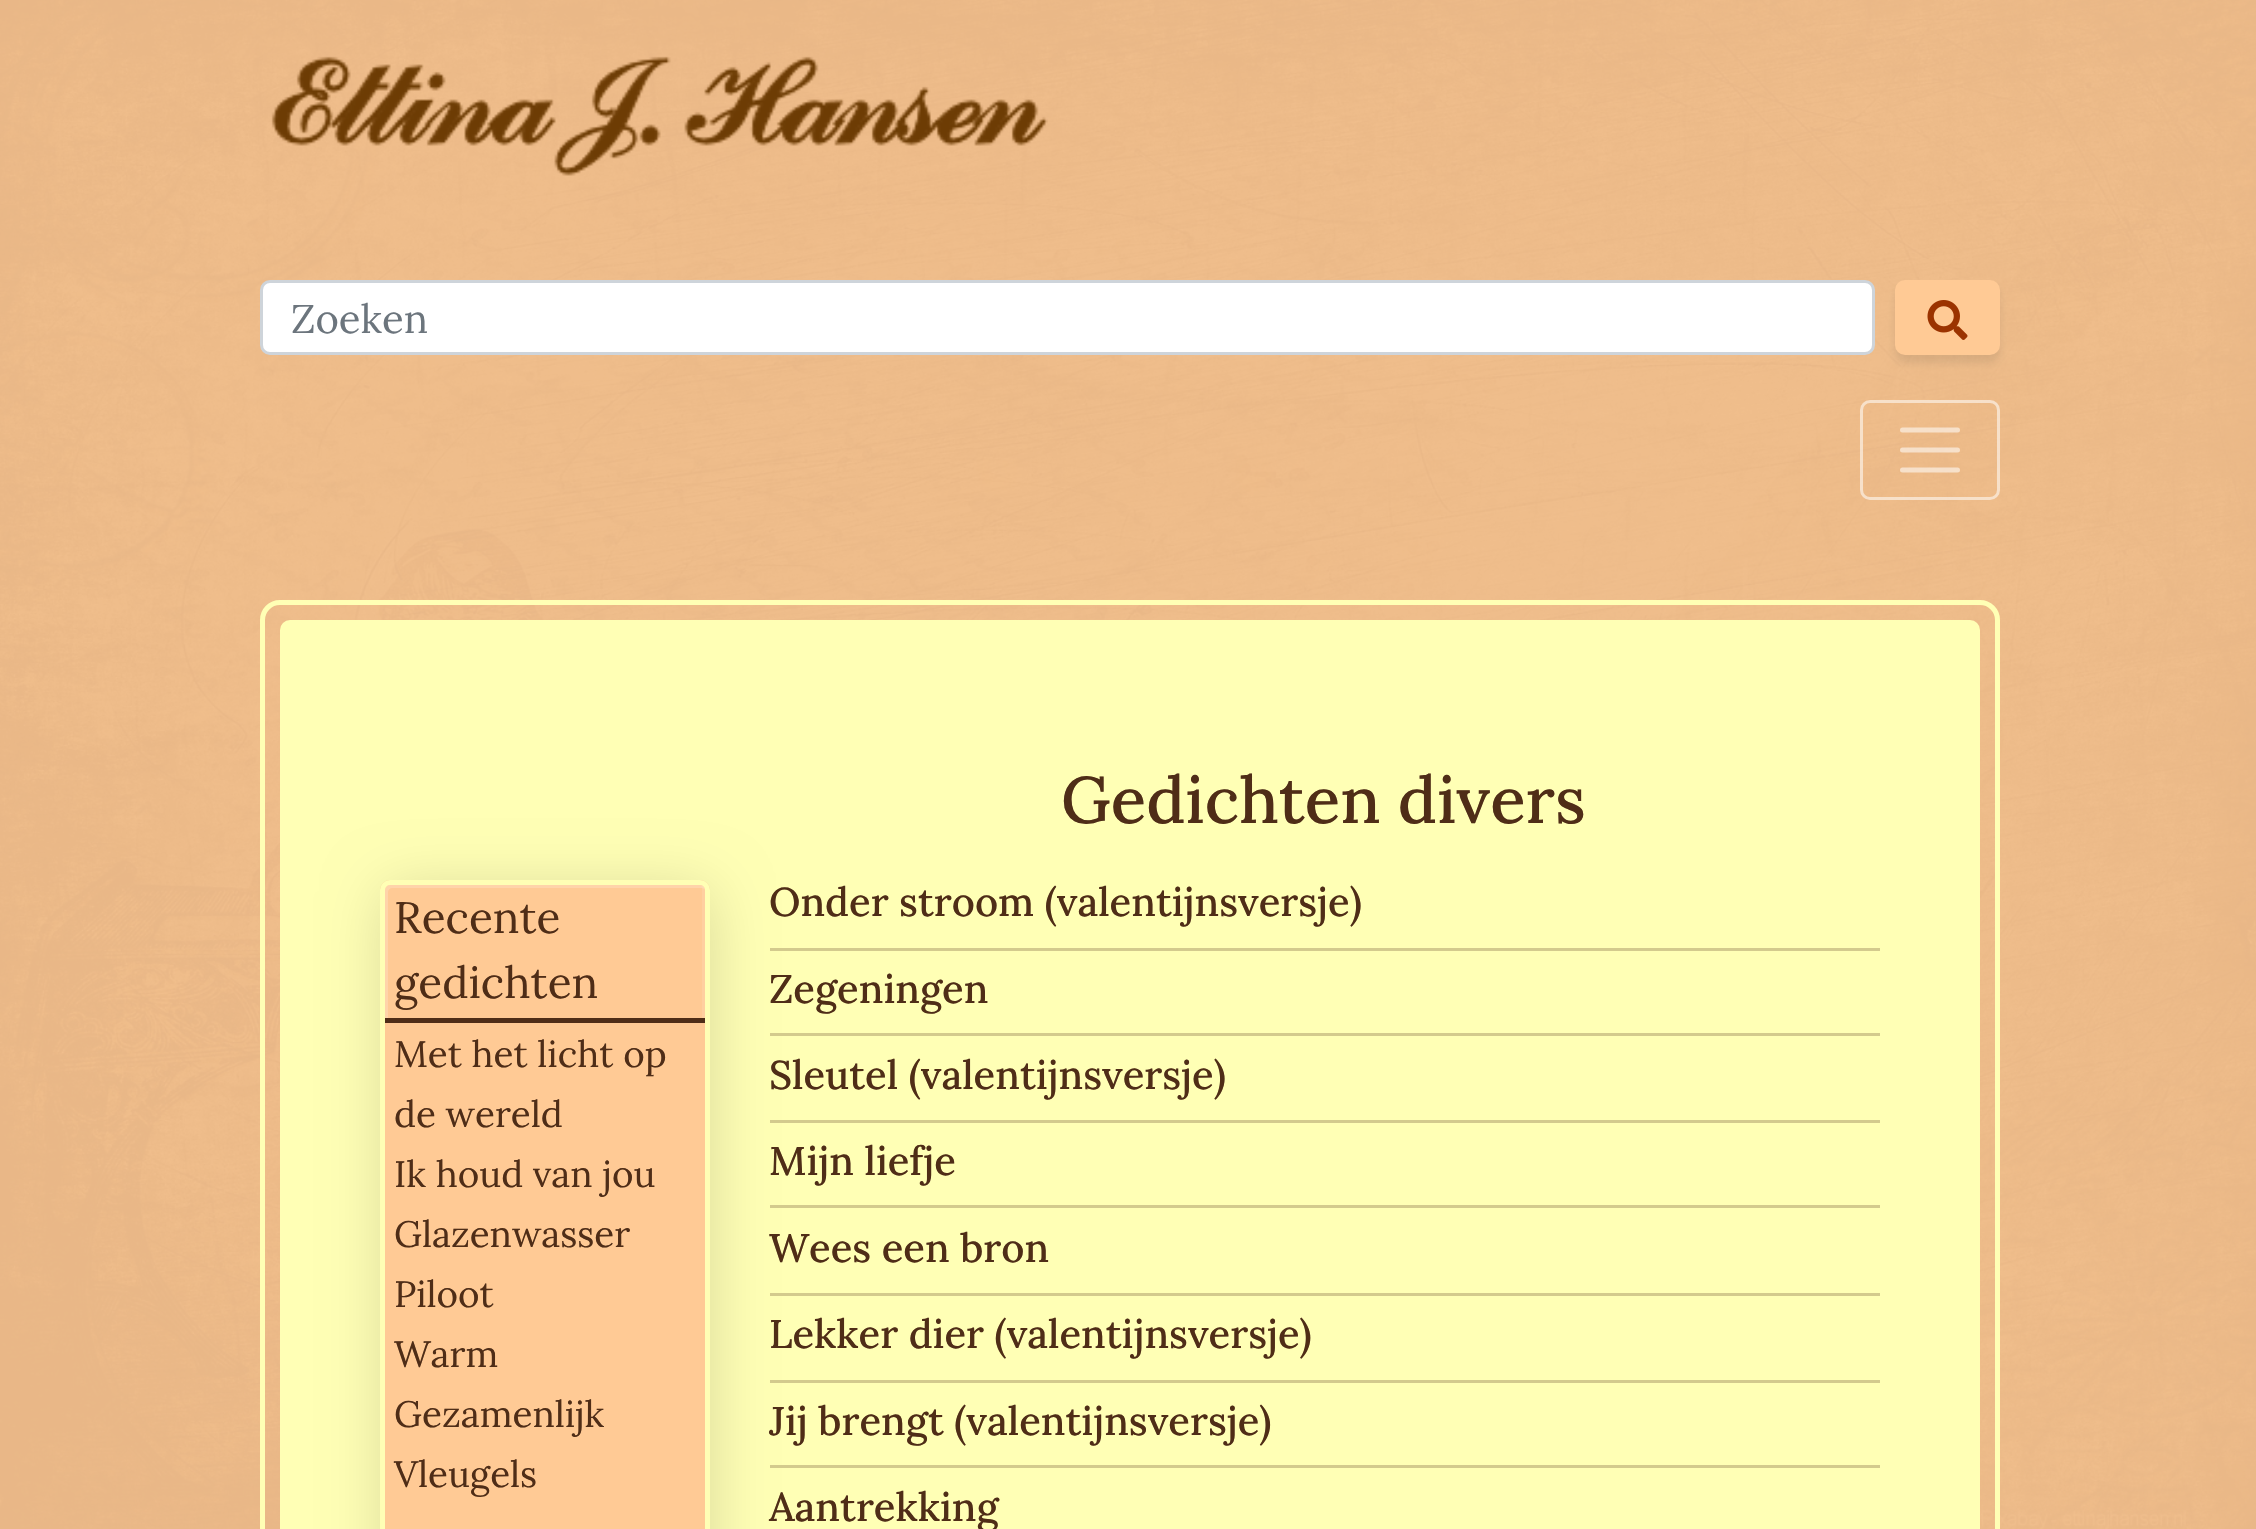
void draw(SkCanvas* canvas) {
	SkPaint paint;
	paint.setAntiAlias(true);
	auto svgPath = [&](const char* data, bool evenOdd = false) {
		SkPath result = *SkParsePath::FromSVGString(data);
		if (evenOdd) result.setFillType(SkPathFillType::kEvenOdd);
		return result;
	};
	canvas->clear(0xffffffff);
	canvas->drawImageRect(SkImages::DeferredFromEncodedData(SkData::MakeFromFileName("img1.png")), SkRect::MakeXYWH(0, 0, 2256, 1529), SkSamplingOptions());
	canvas->drawImageRect(SkImages::DeferredFromEncodedData(SkData::MakeFromFileName("img2.png")), SkRect::MakeXYWH(271, 56, 777, 120), SkSamplingOptions());
	paint.setColor(0xffffffff);
	canvas->drawRoundRect(SkRect::MakeXYWH(261.5, 281.5, 1612, 72), 8.5, 8.5, paint);
	paint.setStroke(true);
	paint.setStrokeWidth(3);
	paint.setColor(0xffced4da);
	canvas->drawRoundRect(SkRect::MakeXYWH(261.5, 281.5, 1612, 72), 8.5, 8.5, paint);
	SkFont f1(fontMgr->matchFamilyStyle("Lora", SkFontStyle::Normal()), 40);
	f1.setSubpixel(true);
	paint.setStroke(false);
	paint.setColor(0xff6c757d);
	canvas->drawString("Zoeken", 291, 333, f1, paint);
	paint.setColor(0x1a212529);
	paint.setMaskFilter(SkMaskFilter::MakeBlur(kNormal_SkBlurStyle, 4));
	canvas->drawRoundRect(SkRect::MakeXYWH(1895, 288, 105, 75), 10, 10, paint);
	paint.setMaskFilter(nullptr);
	paint.setColor(0xffffca95);
	canvas->drawRoundRect(SkRect::MakeXYWH(1896.5, 281.5, 102, 72), 8.5, 8.5, paint);
	paint.setStroke(true);
	canvas->drawRoundRect(SkRect::MakeXYWH(1896.5, 281.5, 102, 72), 8.5, 8.5, paint);
	canvas->drawImageRect(SkImages::DeferredFromEncodedData(SkData::MakeFromFileName("img3.png")), SkRect::MakeXYWH(1927, 300, 41, 40), SkSamplingOptions());
	paint.setColor(0x8cffffff);
	canvas->drawRoundRect(SkRect::MakeXYWH(1861.5, 401.5, 137, 97), 8.5, 8.5, paint);
	paint.setStrokeWidth(5);
	paint.setStrokeCap(SkPaint::kRound_Cap);
	canvas->drawPath(svgPath("M1902.5 430H1957.5M1902.5 450H1957.5M1902.5 470H1957.5"), paint);
	paint.setStrokeCap(SkPaint::kButt_Cap);
	paint.setColor(0xffffffb5);
	canvas->drawRoundRect(SkRect::MakeXYWH(262.5, 602.5, 1735, 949), 17.5, 17.5, paint);
	paint.setStroke(false);
	canvas->drawRoundRect(SkRect::MakeXYWH(280, 620, 1700, 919), 10, 10, paint);
	paint.setColor(0x26000000);
	paint.setMaskFilter(SkMaskFilter::MakeBlur(kNormal_SkBlurStyle, 30));
	canvas->drawRoundRect(SkRect::MakeXYWH(385, 890, 325, 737), 8, 8, paint);
	paint.setMaskFilter(nullptr);
	paint.setColor(0xffffca95);
	canvas->drawRoundRect(SkRect::MakeXYWH(380, 880, 330, 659), 10, 10, paint);
	paint.setColor(0xffffcfa0);
	canvas->drawPath(svgPath("M385 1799C386 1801 388 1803 390 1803H700C703 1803 705 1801 705 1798V890C705 888 704 886 701 885L702 888V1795C702 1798 700 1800 698 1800H388Z"), paint);
	paint.setColor(0x33ffffff);
	canvas->drawPath(svgPath("M392 888H702L705 889C704 886 702 885 700 885H390C387 885 385 887 385 890V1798C385 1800 387 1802 389 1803L388 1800V892C388 890 390 888 392 888Z"), paint);
	paint.setStroke(true);
	paint.setColor(0xffffffb5);
	canvas->drawRoundRect(SkRect::MakeXYWH(382.5, 882.5, 325, 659), 7.5, 7.5, paint);
	paint.setStroke(false);
	paint.setColor(0xff4f2d17);
	canvas->drawRect(SkRect::MakeXYWH(385, 1018, 320, 5), paint);
	SkFont f2(fontMgr->matchFamilyStyle("Lora", SkFontStyle::Normal()), 44);
	f2.setSubpixel(true);
	canvas->drawString("Recente", 394, 933, f2, paint);
	canvas->drawString("gedichten", 394, 998, f2, paint);
	paint.setColor(0xffffca95);
	canvas->drawRect(SkRect::MakeXYWH(385, 1023, 320, 506), paint);
	SkFont f3(fontMgr->matchFamilyStyle("Lora", SkFontStyle::Normal()), 36.75);
	f3.setSubpixel(true);
	paint.setColor(0xff4f2d17);
	canvas->drawString("Met het licht op", 394, 1067, f3, paint);
	canvas->drawString("de wereld", 394, 1127, f3, paint);
	canvas->drawString("Ik houd van jou", 394, 1187, f3, paint);
	canvas->drawString("Glazenwasser", 394, 1247, f3, paint);
	canvas->drawString("Piloot", 394, 1307, f3, paint);
	canvas->drawString("Warm", 394, 1367, f3, paint);
	canvas->drawString("Gezamenlijk", 394, 1427, f3, paint);
	canvas->drawString("Vleugels", 394, 1487, f3, paint);
	SkFont f4(fontMgr->matchFamilyStyle("Lora", SkFontStyle(500, SkFontStyle::kNormal_Width, SkFontStyle::kUpright_Slant)), 65.5);
	f4.setSubpixel(true);
	canvas->drawString("Gedichten divers", 1061, 823, f4, paint);
	SkFont f5(fontMgr->matchFamilyStyle("Lora", SkFontStyle(500, SkFontStyle::kNormal_Width, SkFontStyle::kUpright_Slant)), 40);
	f5.setSubpixel(true);
	canvas->drawString("Onder stroom (valentijnsversje)", 769, 916, f5, paint);
	paint.setColor(0xffd3ca8d);
	canvas->drawRect(SkRect::MakeXYWH(770, 948, 1110, 3), paint);
	paint.setColor(0xff4f2d17);
	canvas->drawString("Zegeningen", 769, 1003, f5, paint);
	paint.setColor(0xffd3ca8d);
	canvas->drawRect(SkRect::MakeXYWH(770, 1033, 1110, 3), paint);
	paint.setColor(0xff4f2d17);
	canvas->drawString("Sleutel (valentijnsversje)", 769, 1089, f5, paint);
	paint.setColor(0xffd3ca8d);
	canvas->drawRect(SkRect::MakeXYWH(770, 1120, 1110, 3), paint);
	paint.setColor(0xff4f2d17);
	canvas->drawString("Mijn liefje", 769, 1175, f5, paint);
	paint.setColor(0xffd3ca8d);
	canvas->drawRect(SkRect::MakeXYWH(770, 1205, 1110, 3), paint);
	paint.setColor(0xff4f2d17);
	canvas->drawString("Wees een bron", 769, 1262, f5, paint);
	paint.setColor(0xffd3ca8d);
	canvas->drawRect(SkRect::MakeXYWH(770, 1293, 1110, 3), paint);
	paint.setColor(0xff4f2d17);
	canvas->drawString("Lekker dier (valentijnsversje)", 769, 1348, f5, paint);
	paint.setColor(0xffd3ca8d);
	canvas->drawRect(SkRect::MakeXYWH(770, 1380, 1110, 3), paint);
	paint.setColor(0xff4f2d17);
	canvas->drawString("Jij brengt (valentijnsversje)", 769, 1435, f5, paint);
	paint.setColor(0xffd3ca8d);
	canvas->drawRect(SkRect::MakeXYWH(770, 1465, 1110, 3), paint);
	paint.setColor(0xff4f2d17);
	canvas->drawString("Aantrekking", 769, 1521, f5, paint);
}
